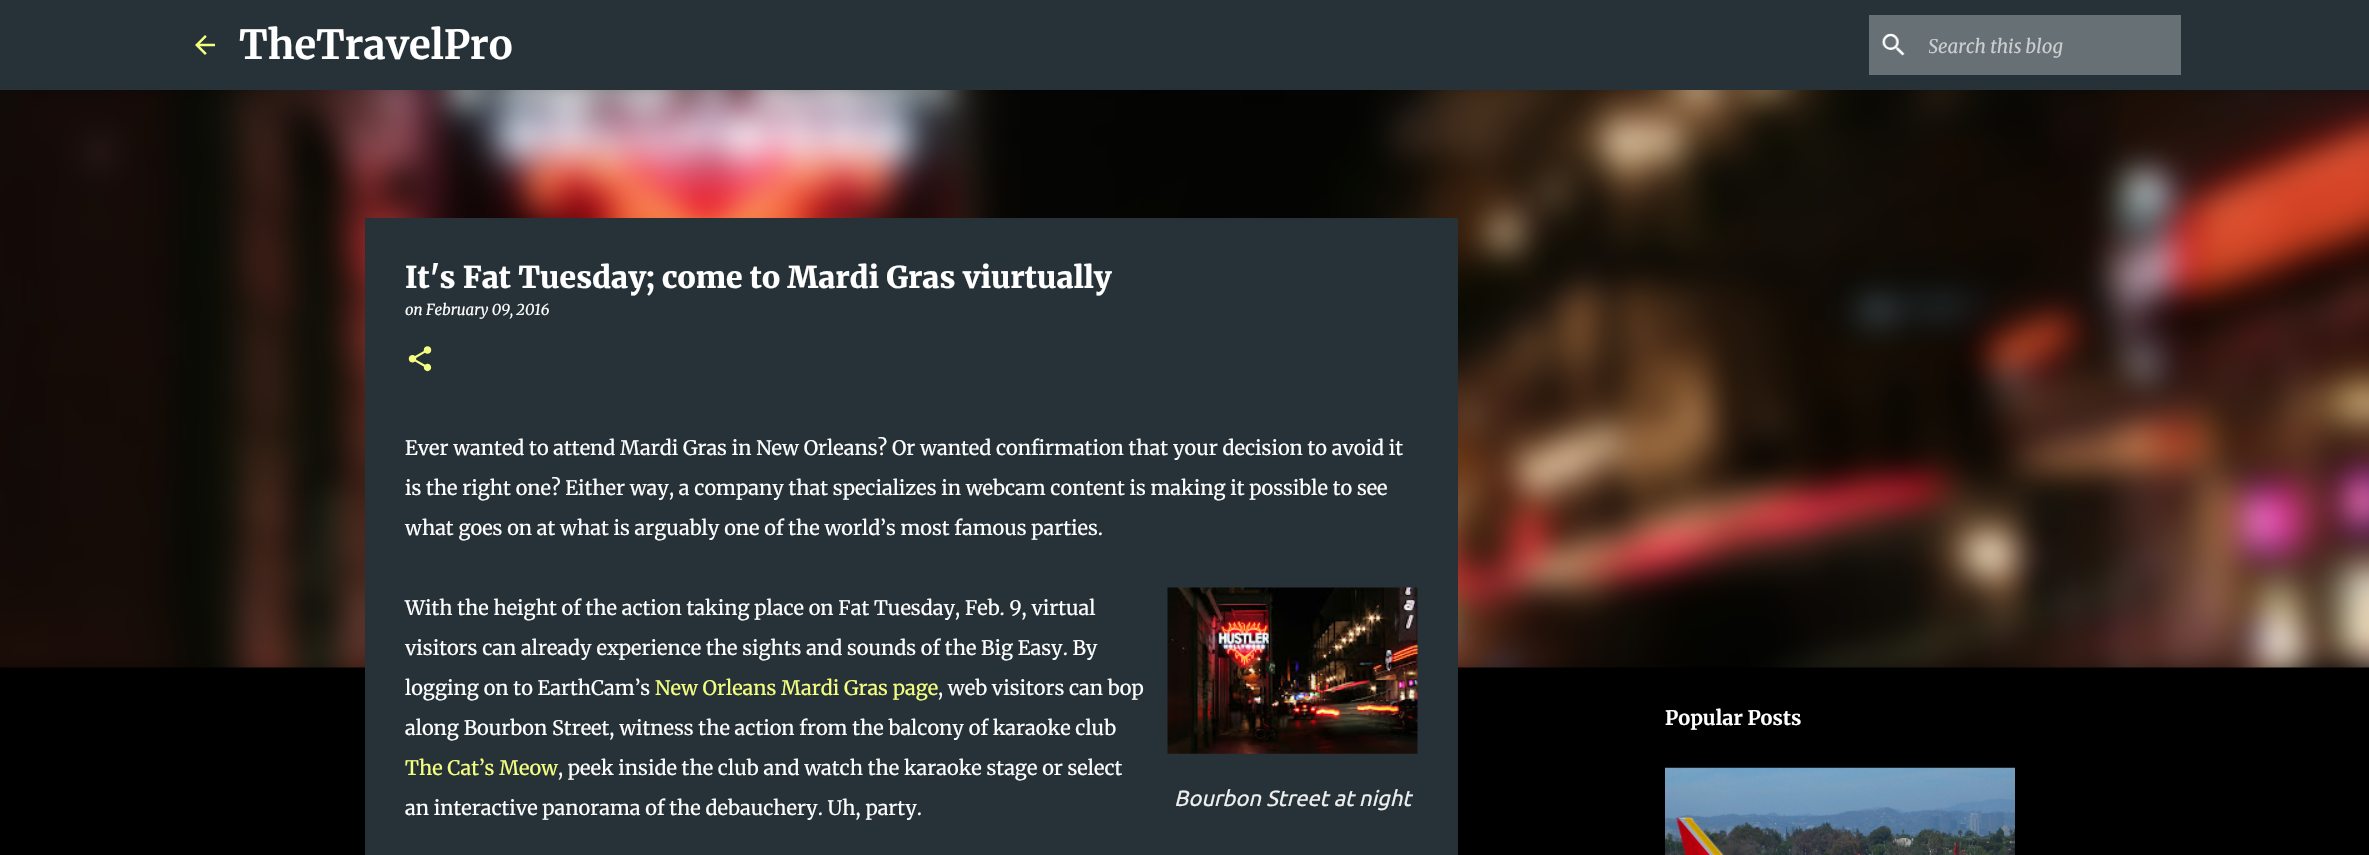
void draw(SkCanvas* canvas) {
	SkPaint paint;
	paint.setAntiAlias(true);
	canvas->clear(0xff000000);
	paint.setColor(0xff263238);
	canvas->drawRect(SkRect::MakeXYWH(0, 0, 2369, 90), paint);
	canvas->drawImageRect(SkImages::DeferredFromEncodedData(SkData::MakeFromFileName("img1.png")), SkRect::MakeXYWH(195, 35, 20, 20), SkSamplingOptions());
	SkFont f1(fontMgr->matchFamilyStyle("Merriweather", SkFontStyle::Bold()), 40);
	f1.setSubpixel(true);
	paint.setColor(0xffffffff);
	canvas->drawString("TheTravelPro", 239, 59, f1, paint);
	paint.setColor(0xff677074);
	canvas->drawRect(SkRect::MakeXYWH(1869, 15, 312, 60), paint);
	canvas->drawImageRect(SkImages::DeferredFromEncodedData(SkData::MakeFromFileName("img2.png")), SkRect::MakeXYWH(1881, 33, 24, 23), SkSamplingOptions());
	canvas->save();
	canvas->clipRect(SkRect::MakeXYWH(1929, 34, 242, 24));
	SkFont f2(fontMgr->matchFamilyStyle("Merriweather", SkFontStyle::Italic()), 18.75);
	f2.setSubpixel(true);
	paint.setColor(0xffcbced0);
	canvas->drawString("Search this blog", 1928, 53, f2, paint);
	canvas->restore();
	canvas->drawImageRect(SkImages::DeferredFromEncodedData(SkData::MakeFromFileName("img6.png")), SkRect::MakeXYWH(0, 90, 2369, 578), SkSamplingOptions());
	paint.setColor(0xff263238);
	canvas->drawRect(SkRect::MakeXYWH(365, 218, 1093, 637), paint);
	SkFont f3(fontMgr->matchFamilyStyle("Merriweather", SkFontStyle(900, SkFontStyle::kNormal_Width, SkFontStyle::kUpright_Slant)), 30);
	f3.setSubpixel(true);
	paint.setColor(0xffffffff);
	canvas->drawString("It's Fat Tuesday; come to Mardi Gras viurtually", 405, 288, f3, paint);
	SkFont f4(fontMgr->matchFamilyStyle("Merriweather", SkFontStyle::Italic()), 15);
	f4.setSubpixel(true);
	canvas->drawString("on February 09, 2016", 405, 315, f4, paint);
	canvas->drawImageRect(SkImages::DeferredFromEncodedData(SkData::MakeFromFileName("img3.png")), SkRect::MakeXYWH(408, 346, 24, 26), SkSamplingOptions());
	SkFont f5(fontMgr->matchFamilyStyle("Merriweather", SkFontStyle::Normal()), 20);
	f5.setSubpixel(true);
	canvas->drawString("Ever wanted to attend Mardi Gras in New Orleans? Or wanted confirmation that your decision to avoid it", 405, 455, f5, paint);
	canvas->drawString("is the right one? Either way, a company that specializes in webcam content is making it possible to see", 405, 495, f5, paint);
	canvas->drawString("what goes on at what is arguably one of the world’s most famous parties.", 405, 535, f5, paint);
	canvas->drawString("With the height of the action taking place on Fat Tuesday, Feb. 9, virtual", 405, 615, f5, paint);
	canvas->drawString("visitors can already experience the sights and sounds of the Big Easy. By", 405, 655, f5, paint);
	canvas->drawString("logging on to EarthCam’s", 405, 695, f5, paint);
	paint.setColor(0xfff4ff81);
	canvas->drawString("New Orleans Mardi Gras page", 655, 695, f5, paint);
	paint.setColor(0xffffffff);
	canvas->drawString(", web visitors can bop", 938, 695, f5, paint);
	canvas->drawString("along Bourbon Street, witness the action from the balcony of karaoke club", 405, 735, f5, paint);
	paint.setColor(0xfff4ff81);
	canvas->drawString("The Cat’s Meow", 405, 775, f5, paint);
	paint.setColor(0xffffffff);
	canvas->drawString(", peek inside the club and watch the karaoke stage or select", 558, 775, f5, paint);
	canvas->drawString("an interactive panorama of the debauchery. Uh, party.", 405, 815, f5, paint);
	canvas->drawImageRect(SkImages::DeferredFromEncodedData(SkData::MakeFromFileName("img4.png")), SkRect::MakeXYWH(1167, 587, 251, 167), SkSamplingOptions());
	SkFont f6(fontMgr->matchFamilyStyle("Ubuntu", SkFontStyle::Italic()), 22);
	f6.setSubpixel(true);
	paint.setColor(0xffeeeeee);
	canvas->drawString("Bourbon Street at night", 1174, 806, f6, paint);
	SkFont f7(fontMgr->matchFamilyStyle("Merriweather", SkFontStyle::Bold()), 20);
	f7.setSubpixel(true);
	paint.setColor(0xffffffff);
	canvas->drawString("Popular Posts", 1665, 725, f7, paint);
	canvas->drawImageRect(SkImages::DeferredFromEncodedData(SkData::MakeFromFileName("img5.png")), SkRect::MakeXYWH(1665, 767, 350, 88), SkSamplingOptions());
}
